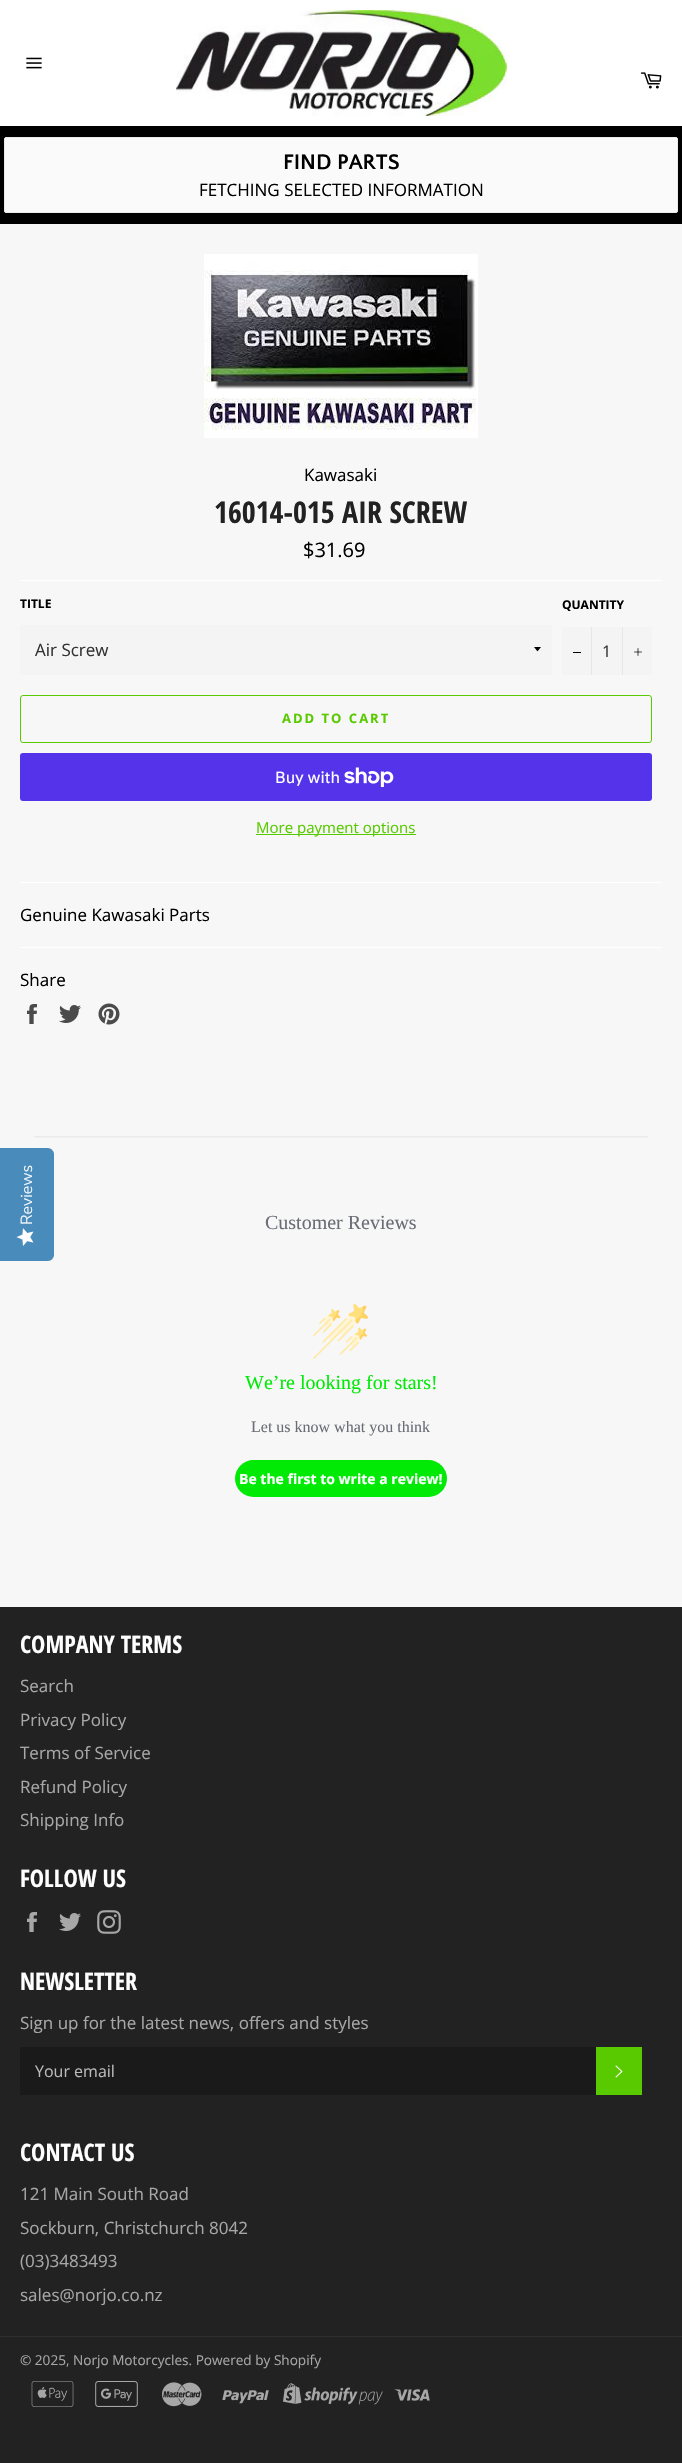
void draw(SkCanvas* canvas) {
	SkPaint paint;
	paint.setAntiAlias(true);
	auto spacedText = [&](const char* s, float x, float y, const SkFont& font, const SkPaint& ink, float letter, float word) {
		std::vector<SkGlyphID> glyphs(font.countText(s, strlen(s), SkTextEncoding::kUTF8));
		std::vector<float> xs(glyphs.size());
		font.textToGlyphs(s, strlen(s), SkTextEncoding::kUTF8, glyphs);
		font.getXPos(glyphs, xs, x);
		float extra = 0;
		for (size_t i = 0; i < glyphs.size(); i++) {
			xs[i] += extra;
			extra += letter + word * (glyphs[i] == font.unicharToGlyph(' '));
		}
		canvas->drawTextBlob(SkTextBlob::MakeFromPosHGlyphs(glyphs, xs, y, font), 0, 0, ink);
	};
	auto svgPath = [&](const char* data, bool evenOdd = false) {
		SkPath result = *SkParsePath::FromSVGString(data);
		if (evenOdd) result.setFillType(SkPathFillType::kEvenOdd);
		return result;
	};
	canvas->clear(0xff222222);
	paint.setColor(0xffffffff);
	canvas->drawRect(SkRect::MakeXYWH(0, 0, 682, 126), paint);
	canvas->drawImageRect(SkImages::DeferredFromEncodedData(SkData::MakeFromFileName("img1.png")), SkRect::MakeXYWH(26, 57, 16, 12), SkSamplingOptions());
	canvas->drawImageRect(SkImages::DeferredFromEncodedData(SkData::MakeFromFileName("img2.png")), SkRect::MakeXYWH(176, 10, 331, 106), SkSamplingOptions());
	canvas->drawImageRect(SkImages::DeferredFromEncodedData(SkData::MakeFromFileName("img3.png")), SkRect::MakeXYWH(640, 72, 22, 17), SkSamplingOptions());
	paint.setColor(0xff000000);
	canvas->drawRect(SkRect::MakeXYWH(0, 126, 682, 98), paint);
	paint.setColor(0xfffafafa);
	canvas->drawRoundRect(SkRect::MakeXYWH(4.5, 137.5, 673, 75), 1.5, 1.5, paint);
	paint.setStroke(true);
	paint.setStrokeWidth(1);
	paint.setColor(0xffebebeb);
	canvas->drawRoundRect(SkRect::MakeXYWH(4.5, 137.5, 673, 75), 1.5, 1.5, paint);
	SkFont f1(fontMgr->matchFamilyStyle("Quattrocento Sans", SkFontStyle::Bold()), 22);
	f1.setSubpixel(true);
	paint.setStroke(false);
	paint.setColor(0xff000000);
	canvas->drawString("FIND PARTS", 283, 169, f1, paint);
	SkFont f2(fontMgr->matchFamilyStyle("Open Sans", SkFontStyle::Normal()), 17);
	f2.setSubpixel(true);
	canvas->drawString("FETCHING SELECTED INFORMATION", 199, 196, f2, paint);
	paint.setColor(0xfff7f7f7);
	canvas->drawRect(SkRect::MakeXYWH(0, 224, 682, 1383), paint);
	canvas->drawImageRect(SkImages::DeferredFromEncodedData(SkData::MakeFromFileName("img4.png")), SkRect::MakeXYWH(204, 254, 274, 184), SkSamplingOptions());
	paint.setColor(0xff000000);
	canvas->drawString("Kawasaki", 304, 481, f2, paint);
	SkFont f3(fontMgr->matchFamilyStyle("Open Sans Condensed", SkFontStyle::Bold()), 30);
	f3.setSubpixel(true);
	paint.setColor(0xff222222);
	canvas->drawString("16014-015 AIR SCREW", 214, 523, f3, paint);
	SkFont f4(fontMgr->matchFamilyStyle("Open Sans", SkFontStyle::Normal()), 20);
	f4.setSubpixel(true);
	paint.setColor(0xff000000);
	canvas->drawString("$31.69", 303, 557, f4, paint);
	paint.setColor(0xffffffff);
	canvas->drawRect(SkRect::MakeXYWH(20, 580, 642, 1), paint);
	SkFont f5(fontMgr->matchFamilyStyle("Open Sans", SkFontStyle::Bold()), 12);
	f5.setSubpixel(true);
	paint.setColor(0xff000000);
	canvas->drawString("TITLE", 20, 608, f5, paint);
	paint.setColor(0xfff4f4f4);
	canvas->drawRect(SkRect::MakeXYWH(20, 625, 532, 50), paint);
	paint.setColor(0xff000000);
	canvas->drawPath(svgPath("M534 647C538.5 652.5 536.5 652.5 541 647Z"), paint);
	paint.setColor(0xff333333);
	canvas->drawString("Air Screw", 35, 656, f2, paint);
	paint.setColor(0xff000000);
	canvas->drawString("QUANTITY", 562, 609, f5, paint);
	paint.setColor(0xfff4f4f4);
	canvas->drawRect(SkRect::MakeXYWH(562, 627, 90, 48), paint);
	paint.setColor(0xffe7e7e7);
	canvas->drawRect(SkRect::MakeXYWH(591, 627, 1, 48), paint);
	paint.setColor(0xff000000);
	canvas->drawRect(SkRect::MakeXYWH(573, 652, 8, 1), paint);
	SkFont f6(fontMgr->matchFamilyStyle("Open Sans", SkFontStyle::Normal()), 16);
	f6.setSubpixel(true);
	paint.setColor(0xff333333);
	canvas->drawString("1", 602, 657, f6, paint);
	paint.setColor(0xffe7e7e7);
	canvas->drawRect(SkRect::MakeXYWH(622, 627, 1, 48), paint);
	canvas->drawImageRect(SkImages::DeferredFromEncodedData(SkData::MakeFromFileName("img5.png")), SkRect::MakeXYWH(634, 648, 8, 8), SkSamplingOptions());
	paint.setStroke(true);
	paint.setColor(0xff59ca00);
	canvas->drawRoundRect(SkRect::MakeXYWH(20.5, 695.5, 631, 47), 2.5, 2.5, paint);
	SkFont f7(fontMgr->matchFamilyStyle("Open Sans", SkFontStyle::Bold()), 13);
	f7.setSubpixel(true);
	paint.setStroke(false);
	spacedText("ADD TO CART", 282, 723, f7, paint, 2, 0);
	paint.setColor(0xff5433eb);
	canvas->drawRoundRect(SkRect::MakeXYWH(20, 753, 632, 48), 3, 3, paint);
	SkFont f8(fontMgr->matchFamilyStyle("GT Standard", SkFontStyle::Normal()), 16);
	f8.setSubpixel(true);
	paint.setColor(0xffffffff);
	canvas->drawString("Buy with", 275, 783, f8, paint);
	canvas->drawImageRect(SkImages::DeferredFromEncodedData(SkData::MakeFromFileName("img6.png")), SkRect::MakeXYWH(344, 767, 50, 20), SkSamplingOptions());
	paint.setColor(0xff59ca00);
	canvas->drawRect(SkRect::MakeXYWH(256, 834, 160, 1), paint);
	SkFont f9(fontMgr->matchFamilyStyle("Open Sans", SkFontStyle::Normal()), 15);
	f9.setSubpixel(true);
	canvas->drawString("More payment options", 256, 833, f9, paint);
	paint.setColor(0xffffffff);
	canvas->drawRect(SkRect::MakeXYWH(20, 882, 642, 1), paint);
	paint.setColor(0xff000000);
	canvas->drawString("Genuine Kawasaki Parts", 20, 921, f2, paint);
	paint.setColor(0xffffffff);
	canvas->drawRect(SkRect::MakeXYWH(20, 947, 642, 1), paint);
	paint.setColor(0xff000000);
	canvas->drawString("Share", 20, 986, f2, paint);
	canvas->drawImageRect(SkImages::DeferredFromEncodedData(SkData::MakeFromFileName("img7.png")), SkRect::MakeXYWH(27, 1004, 10, 20), SkSamplingOptions());
	canvas->drawImageRect(SkImages::DeferredFromEncodedData(SkData::MakeFromFileName("img8.png")), SkRect::MakeXYWH(59, 1005, 22, 18), SkSamplingOptions());
	canvas->drawImageRect(SkImages::DeferredFromEncodedData(SkData::MakeFromFileName("img9.png")), SkRect::MakeXYWH(98, 1003, 22, 22), SkSamplingOptions());
	canvas->drawImageRect(SkImages::DeferredFromEncodedData(SkData::MakeFromFileName("img10.png")), SkRect::MakeXYWH(34, 1136, 614, 2), SkSamplingOptions());
	SkFont f10(fontMgr->matchFamilyStyle("Liberation Serif", SkFontStyle::Normal()), 20);
	f10.setSubpixel(true);
	paint.setColor(0xff6b6d76);
	canvas->drawString("Customer Reviews", 265, 1229, f10, paint);
	canvas->drawImageRect(SkImages::DeferredFromEncodedData(SkData::MakeFromFileName("img11.png")), SkRect::MakeXYWH(313, 1304, 55, 55), SkSamplingOptions());
	paint.setColor(0xff00ea06);
	canvas->drawString("We’re looking for stars!", 245, 1389, f10, paint);
	SkFont f11(fontMgr->matchFamilyStyle("Liberation Serif", SkFontStyle::Normal()), 16);
	f11.setSubpixel(true);
	paint.setColor(0xff6b6d76);
	canvas->drawString("Let us know what you think", 251, 1432, f11, paint);
	paint.setColor(0xff00ea06);
	canvas->drawRoundRect(SkRect::MakeXYWH(235, 1460, 212, 37), 18.5, 18.5, paint);
	SkFont f12(fontMgr->matchFamilyStyle("Open Sans", SkFontStyle::Bold()), 14);
	f12.setSubpixel(true);
	paint.setColor(0xffffffff);
	canvas->drawString("Be the first to write a review!", 239, 1484, f12, paint);
	SkFont f13(fontMgr->matchFamilyStyle("Open Sans Condensed", SkFontStyle::Bold()), 24);
	f13.setSubpixel(true);
	canvas->drawString("COMPANY TERMS", 20, 1653, f13, paint);
	paint.setColor(0xffa7a7a7);
	canvas->drawString("Search", 20, 1692, f2, paint);
	canvas->drawString("Privacy Policy", 20, 1726, f2, paint);
	canvas->drawString("Terms of Service", 20, 1759, f2, paint);
	canvas->drawString("Refund Policy", 20, 1793, f2, paint);
	canvas->drawString("Shipping Info", 20, 1826, f2, paint);
	paint.setColor(0xffffffff);
	canvas->drawString("FOLLOW US", 20, 1887, f13, paint);
	canvas->drawImageRect(SkImages::DeferredFromEncodedData(SkData::MakeFromFileName("img12.png")), SkRect::MakeXYWH(27, 1912, 10, 20), SkSamplingOptions());
	canvas->drawImageRect(SkImages::DeferredFromEncodedData(SkData::MakeFromFileName("img13.png")), SkRect::MakeXYWH(59, 1913, 22, 18), SkSamplingOptions());
	canvas->drawImageRect(SkImages::DeferredFromEncodedData(SkData::MakeFromFileName("img14.png")), SkRect::MakeXYWH(97, 1910, 24, 24), SkSamplingOptions());
	canvas->drawString("NEWSLETTER", 20, 1990, f13, paint);
	paint.setColor(0xffa7a7a7);
	canvas->drawString("Sign up for the latest news, offers and styles", 20, 2029, f2, paint);
	paint.setColor(0xff1a1a1a);
	canvas->drawRect(SkRect::MakeXYWH(20, 2047, 576, 48), paint);
	paint.setColor(0xffbababa);
	canvas->drawString("Your email", 35, 2077, f6, paint);
	paint.setColor(0xff59ca00);
	canvas->drawRect(SkRect::MakeXYWH(596, 2047, 46, 48), paint);
	canvas->drawImageRect(SkImages::DeferredFromEncodedData(SkData::MakeFromFileName("img15.png")), SkRect::MakeXYWH(615, 2065, 8, 13), SkSamplingOptions());
	paint.setColor(0xffffffff);
	canvas->drawString("CONTACT US", 20, 2161, f13, paint);
	paint.setColor(0xffa7a7a7);
	canvas->drawString("121 Main South Road", 20, 2200, f2, paint);
	canvas->drawString("Sockburn, Christchurch 8042", 20, 2234, f2, paint);
	canvas->drawString("(03)3483493", 20, 2267, f2, paint);
	canvas->drawString("sales@norjo.co.nz", 20, 2301, f2, paint);
	paint.setColor(0xff2f2f2f);
	canvas->drawRect(SkRect::MakeXYWH(0, 2336, 682, 1), paint);
	SkFont f14(fontMgr->matchFamilyStyle("Open Sans", SkFontStyle::Normal()), 13.6);
	f14.setSubpixel(true);
	paint.setColor(0xffa7a7a7);
	canvas->drawString("© 2025, Norjo Motorcycles. Powered by Shopify", 20, 2365, f14, paint);
	canvas->drawImageRect(SkImages::DeferredFromEncodedData(SkData::MakeFromFileName("img16.png")), SkRect::MakeXYWH(31, 2381, 43, 26), SkSamplingOptions());
	canvas->drawImageRect(SkImages::DeferredFromEncodedData(SkData::MakeFromFileName("img17.png")), SkRect::MakeXYWH(95, 2381, 43, 26), SkSamplingOptions());
	canvas->drawImageRect(SkImages::DeferredFromEncodedData(SkData::MakeFromFileName("img18.png")), SkRect::MakeXYWH(162, 2382, 40, 25), SkSamplingOptions());
	canvas->drawImageRect(SkImages::DeferredFromEncodedData(SkData::MakeFromFileName("img19.png")), SkRect::MakeXYWH(222, 2390, 47, 14), SkSamplingOptions());
	canvas->drawImageRect(SkImages::DeferredFromEncodedData(SkData::MakeFromFileName("img20.png")), SkRect::MakeXYWH(283, 2383, 100, 22), SkSamplingOptions());
	canvas->drawImageRect(SkImages::DeferredFromEncodedData(SkData::MakeFromFileName("img21.png")), SkRect::MakeXYWH(394, 2389, 36, 12), SkSamplingOptions());
	paint.setColor(0xff498cbc);
	canvas->drawPath(svgPath("M0 1261V1148H48C51 1148 54 1151 54 1154V1255C54 1258 51 1261 48 1261Z"), paint);
	SkFont f15(fontMgr->matchFamilyStyle("Nunito Sans", SkFontStyle(300, SkFontStyle::kNormal_Width, SkFontStyle::kUpright_Slant)), 16);
	f15.setSubpixel(true);
	paint.setColor(0xffffffff);
	canvas->save();
	canvas->rotate(-90, 32, 1225);
	canvas->drawString("Reviews", 32, 1225, f15, paint);
	canvas->restore();
	canvas->drawImageRect(SkImages::DeferredFromEncodedData(SkData::MakeFromFileName("img22.png")), SkRect::MakeXYWH(16, 1228, 18, 18), SkSamplingOptions());
}
